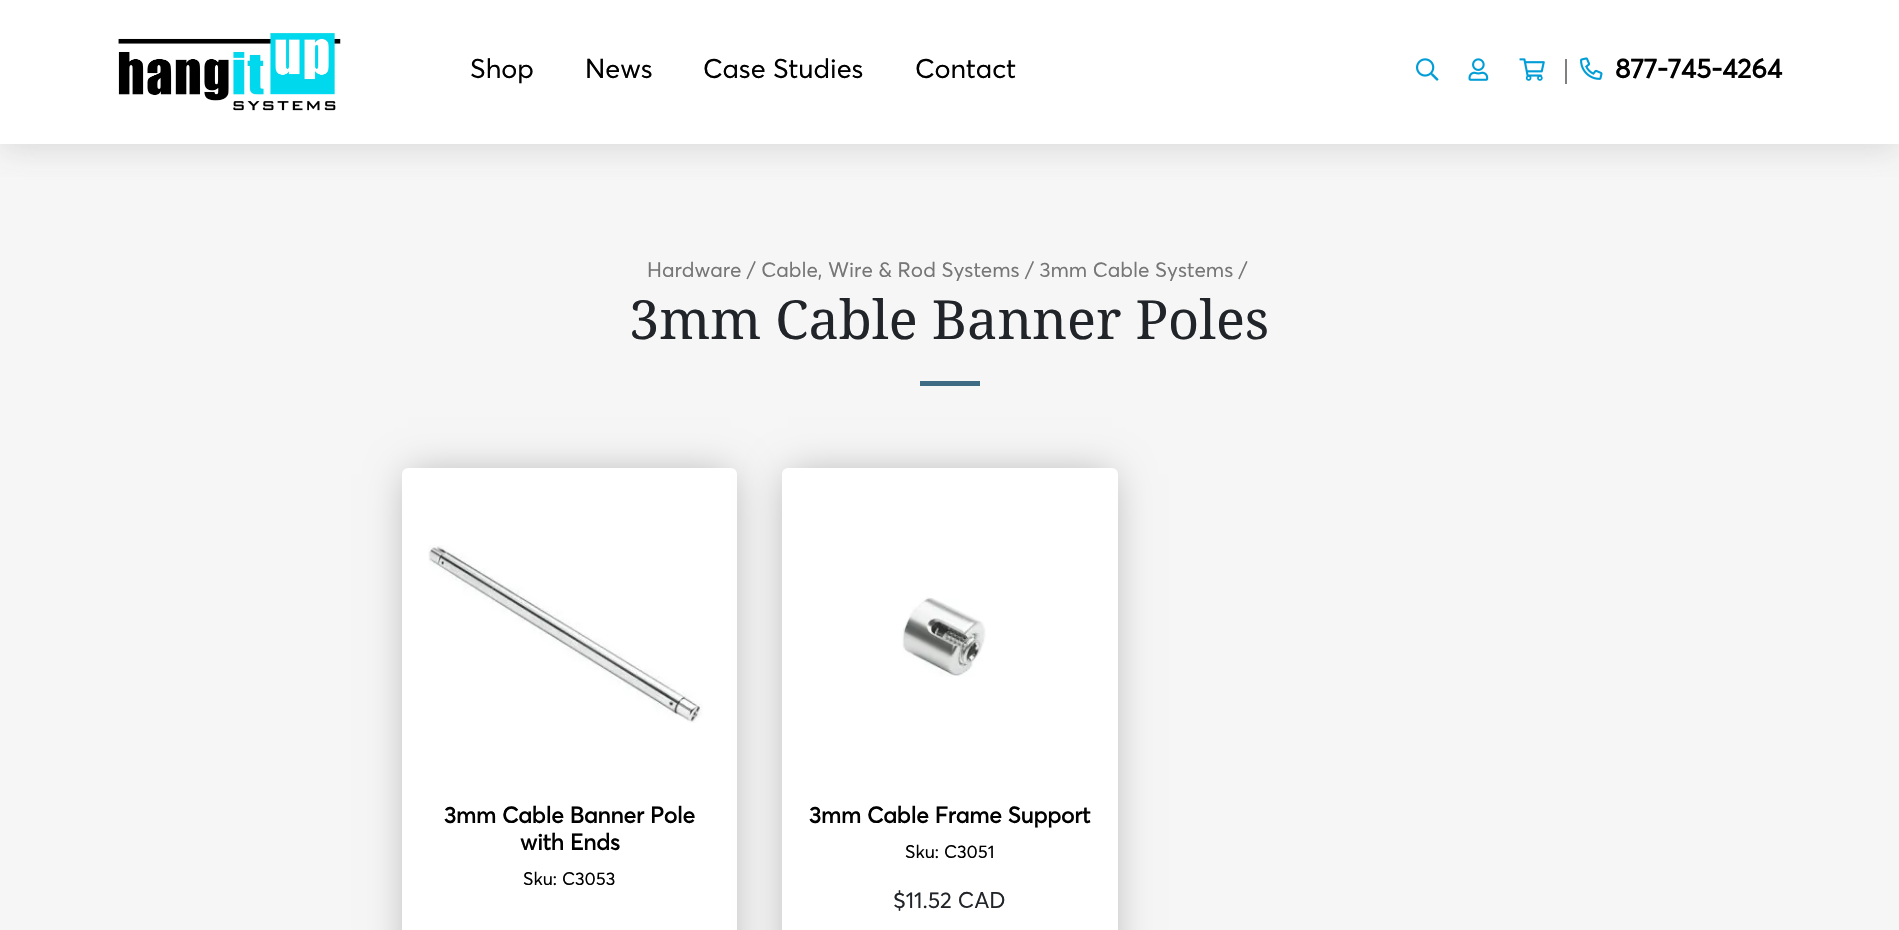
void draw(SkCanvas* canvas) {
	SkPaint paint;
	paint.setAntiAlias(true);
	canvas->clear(0xffffffff);
	paint.setColor(0xfff6f6f6);
	canvas->drawRect(SkRect::MakeXYWH(0, 144, 1899, 786), paint);
	canvas->save();
	canvas->clipRect(SkRect::MakeXYWH(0, 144, 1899, 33));
	paint.setColor(0xb0cccccc);
	paint.setMaskFilter(SkMaskFilter::MakeBlur(kNormal_SkBlurStyle, 15));
	canvas->drawRect(SkRect::MakeXYWH(0, 5, 1899, 144), paint);
	paint.setMaskFilter(nullptr);
	canvas->restore();
	canvas->drawImageRect(SkImages::DeferredFromEncodedData(SkData::MakeFromFileName("img1.png")), SkRect::MakeXYWH(118, 32, 223, 79), SkSamplingOptions());
	SkFont f1(fontMgr->matchFamilyStyle("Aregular", SkFontStyle::Normal()), 27);
	f1.setSubpixel(true);
	paint.setColor(0xff000000);
	canvas->drawString("Shop", 470, 78, f1, paint);
	canvas->drawString("News", 585, 78, f1, paint);
	canvas->drawString("Case Studies", 703, 78, f1, paint);
	canvas->drawString("Contact", 915, 78, f1, paint);
	canvas->drawImageRect(SkImages::DeferredFromEncodedData(SkData::MakeFromFileName("img2.png")), SkRect::MakeXYWH(1416, 58, 23, 23), SkSamplingOptions());
	canvas->drawImageRect(SkImages::DeferredFromEncodedData(SkData::MakeFromFileName("img3.png")), SkRect::MakeXYWH(1468, 58, 21, 23), SkSamplingOptions());
	canvas->drawImageRect(SkImages::DeferredFromEncodedData(SkData::MakeFromFileName("img4.png")), SkRect::MakeXYWH(1519, 58, 26, 23), SkSamplingOptions());
	paint.setColor(0xff808080);
	canvas->drawRect(SkRect::MakeXYWH(1565, 59, 2, 25), paint);
	canvas->drawImageRect(SkImages::DeferredFromEncodedData(SkData::MakeFromFileName("img5.png")), SkRect::MakeXYWH(1580, 57, 23, 23), SkSamplingOptions());
	SkFont f2(fontMgr->matchFamilyStyle("Aregular", SkFontStyle::Bold()), 27);
	f2.setSubpixel(true);
	paint.setColor(0xff000000);
	canvas->drawString("877-745-4264", 1615, 78, f2, paint);
	SkFont f3(fontMgr->matchFamilyStyle("Aregular", SkFontStyle::Normal()), 20.7);
	f3.setSubpixel(true);
	paint.setColor(0xff767676);
	canvas->drawString("Hardware / Cable, Wire & Rod Systems / 3mm Cable Systems /", 647, 277, f3, paint);
	SkFont f4(fontMgr->matchFamilyStyle("Noto Serif", SkFontStyle::Normal()), 54);
	f4.setSubpixel(true);
	paint.setColor(0xff212529);
	canvas->drawString("3mm Cable Banner Poles", 629, 339, f4, paint);
	paint.setColor(0xff3e6b83);
	canvas->drawRect(SkRect::MakeXYWH(920, 381, 60, 5), paint);
	paint.setColor(0xffb0b0b0);
	paint.setMaskFilter(SkMaskFilter::MakeBlur(kNormal_SkBlurStyle, 19));
	canvas->drawRect(SkRect::MakeXYWH(408, 474, 323, 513), paint);
	paint.setMaskFilter(nullptr);
	paint.setColor(0xffffffff);
	canvas->drawRoundRect(SkRect::MakeXYWH(402, 468, 335, 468), 6, 6, paint);
	canvas->drawImageRect(SkImages::DeferredFromEncodedData(SkData::MakeFromFileName("img6.png")), SkRect::MakeXYWH(428, 545, 275, 178), SkSamplingOptions());
	SkFont f5(fontMgr->matchFamilyStyle("Aregular", SkFontStyle::Bold()), 22.5);
	f5.setSubpixel(true);
	paint.setColor(0xff000000);
	canvas->drawString("3mm Cable Banner Pole", 444, 823, f5, paint);
	canvas->drawString("with Ends", 520, 850, f5, paint);
	SkFont f6(fontMgr->matchFamilyStyle("Aregular", SkFontStyle::Normal()), 18);
	f6.setSubpixel(true);
	canvas->drawString("Sku: C3053", 523, 885, f6, paint);
	paint.setColor(0xffb0b0b0);
	paint.setMaskFilter(SkMaskFilter::MakeBlur(kNormal_SkBlurStyle, 19));
	canvas->drawRect(SkRect::MakeXYWH(788, 474, 324, 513), paint);
	paint.setMaskFilter(nullptr);
	paint.setColor(0xffffffff);
	canvas->drawRoundRect(SkRect::MakeXYWH(782, 468, 336, 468), 6, 6, paint);
	canvas->drawImageRect(SkImages::DeferredFromEncodedData(SkData::MakeFromFileName("img7.png")), SkRect::MakeXYWH(901, 597, 85, 80), SkSamplingOptions());
	paint.setColor(0xff000000);
	canvas->drawString("3mm Cable Frame Support", 809, 823, f5, paint);
	canvas->drawString("Sku: C3051", 905, 858, f6, paint);
	SkFont f7(fontMgr->matchFamilyStyle("Aregular", SkFontStyle::Normal()), 22.5);
	f7.setSubpixel(true);
	paint.setColor(0xff212529);
	canvas->drawString("$11.52 CAD", 893, 908, f7, paint);
}
